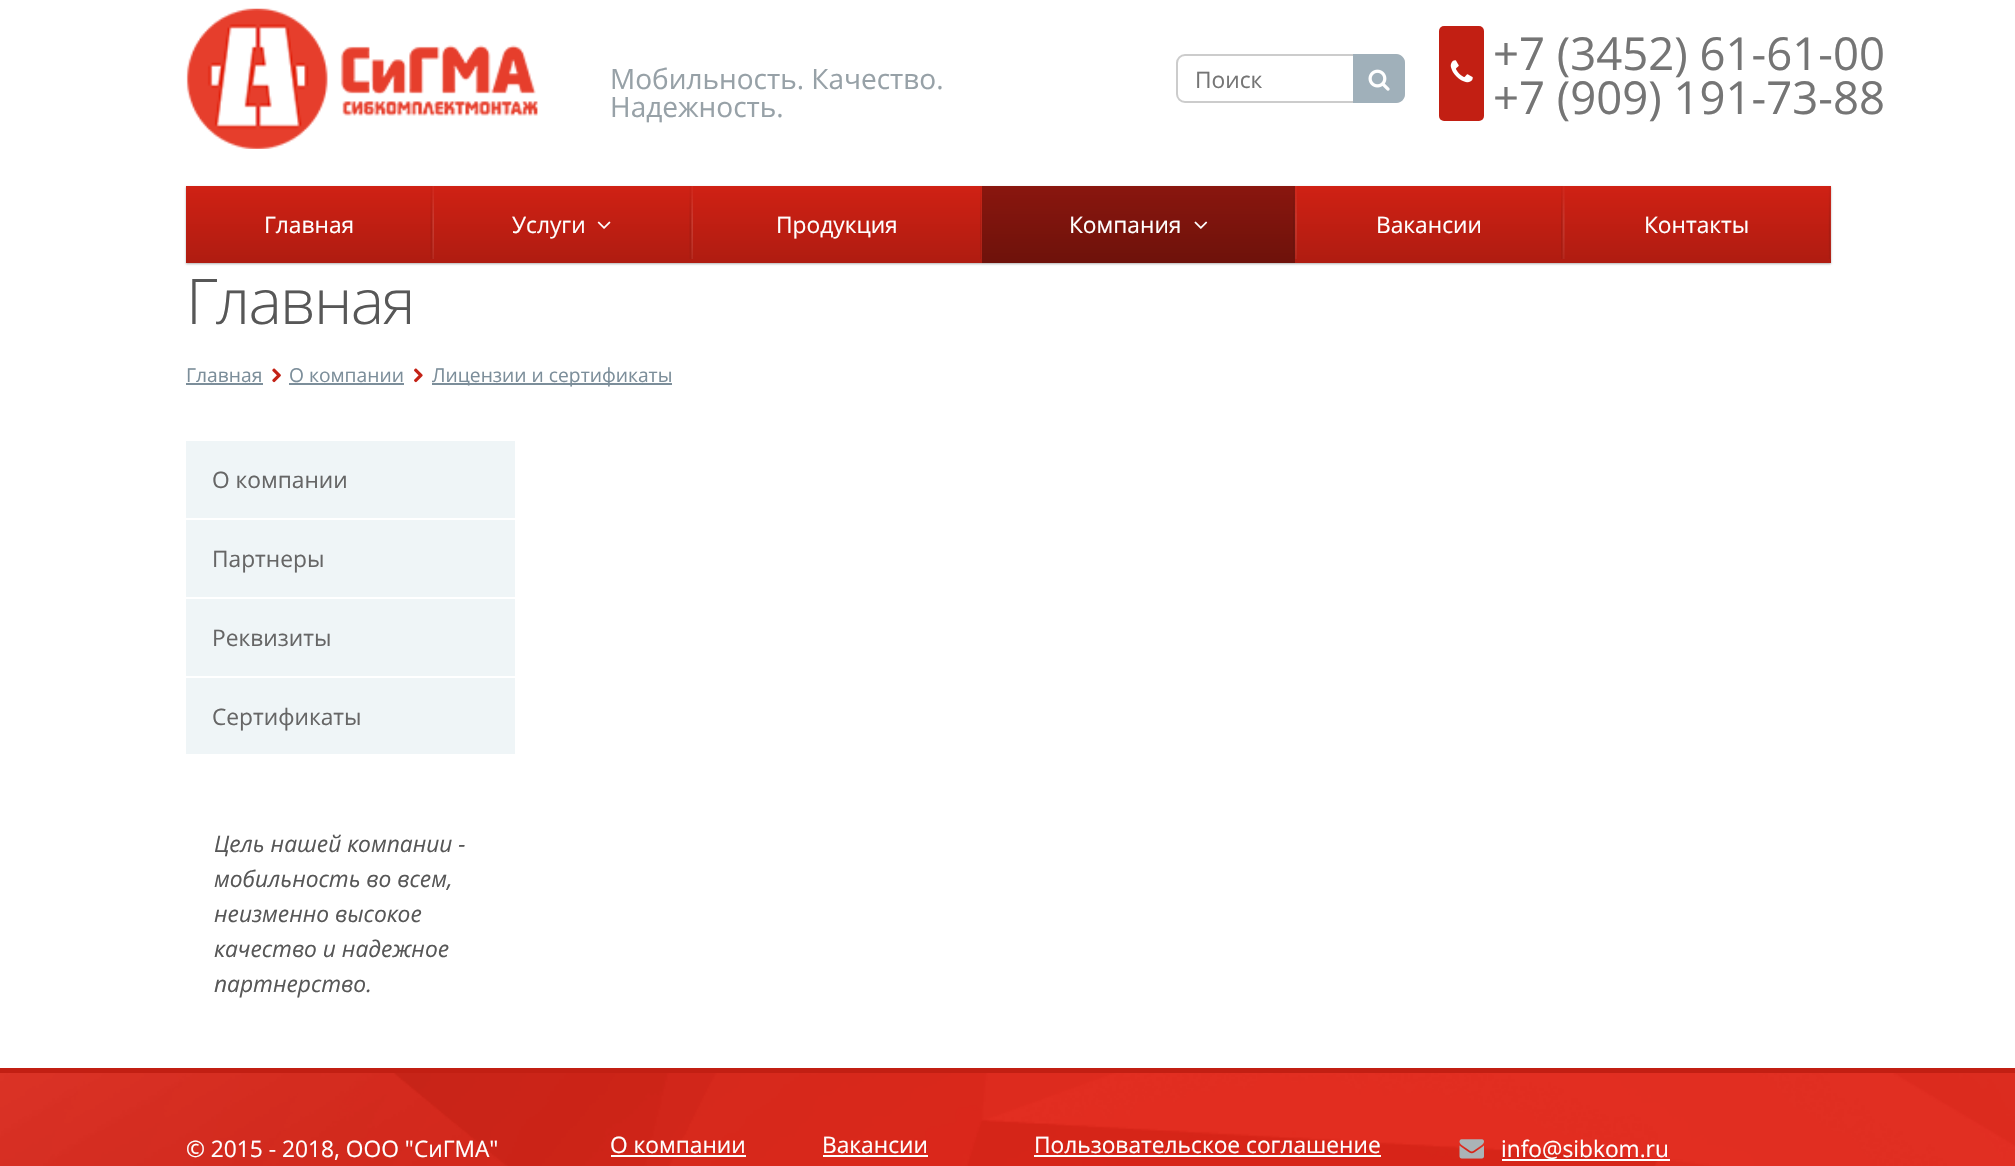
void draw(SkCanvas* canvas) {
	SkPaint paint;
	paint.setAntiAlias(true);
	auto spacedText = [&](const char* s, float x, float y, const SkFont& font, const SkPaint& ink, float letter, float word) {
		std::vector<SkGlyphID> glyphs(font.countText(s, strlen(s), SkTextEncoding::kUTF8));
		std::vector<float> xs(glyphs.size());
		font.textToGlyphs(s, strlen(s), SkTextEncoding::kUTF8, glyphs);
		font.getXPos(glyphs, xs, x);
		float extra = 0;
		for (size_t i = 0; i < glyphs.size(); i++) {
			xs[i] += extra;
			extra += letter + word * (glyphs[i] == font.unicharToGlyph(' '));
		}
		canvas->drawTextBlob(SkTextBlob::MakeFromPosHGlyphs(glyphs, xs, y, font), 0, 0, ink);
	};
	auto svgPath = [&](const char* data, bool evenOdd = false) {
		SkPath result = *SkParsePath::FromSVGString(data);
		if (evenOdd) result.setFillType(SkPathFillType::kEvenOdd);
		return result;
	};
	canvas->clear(0xffffffff);
	canvas->drawImageRect(SkImages::DeferredFromEncodedData(SkData::MakeFromFileName("img1.png")), SkRect::MakeXYWH(186, 8, 352, 141), SkSamplingOptions());
	SkFont f1(fontMgr->matchFamilyStyle("Open Sans", SkFontStyle::Normal()), 28);
	f1.setSubpixel(true);
	paint.setColor(0xff97a1a7);
	canvas->drawString("Мобильность. Качество.", 610, 89, f1, paint);
	canvas->drawString("Надежность.", 610, 117, f1, paint);
	paint.setStroke(true);
	paint.setStrokeWidth(2);
	paint.setColor(0xffcccccc);
	canvas->drawRoundRect(SkRect::MakeXYWH(1177, 55, 227, 47), 8, 8, paint);
	SkFont f2(fontMgr->matchFamilyStyle("Open Sans", SkFontStyle::Normal()), 22.75);
	f2.setSubpixel(true);
	paint.setStroke(false);
	paint.setColor(0xff757575);
	canvas->drawString("Поиск", 1195, 88, f2, paint);
	paint.setColor(0xffa0b0ba);
	canvas->drawPath(svgPath("M1353 54H1396C1401 54 1405 58 1405 63V94C1405 99 1401 103 1396 103H1353Z"), paint);
	canvas->drawImageRect(SkImages::DeferredFromEncodedData(SkData::MakeFromFileName("img2.png")), SkRect::MakeXYWH(1368, 69, 22, 22), SkSamplingOptions());
	paint.setColor(0xffc21f13);
	canvas->drawRoundRect(SkRect::MakeXYWH(1439, 26, 45, 95), 5, 5, paint);
	canvas->drawImageRect(SkImages::DeferredFromEncodedData(SkData::MakeFromFileName("img3.png")), SkRect::MakeXYWH(1450, 60, 23, 23), SkSamplingOptions());
	SkFont f3(fontMgr->matchFamilyStyle("Open Sans", SkFontStyle::Normal()), 45.5);
	f3.setSubpixel(true);
	paint.setColor(0xff757575);
	canvas->drawString("+7 (3452) 61-61-00", 1493, 70, f3, paint);
	canvas->drawString("+7 (909) 191-73-88", 1493, 114, f3, paint);
	paint.setColor(0x4d000000);
	paint.setMaskFilter(SkMaskFilter::MakeBlur(kNormal_SkBlurStyle, 1));
	canvas->drawRect(SkRect::MakeXYWH(186, 187, 1645, 77), paint);
	paint.setMaskFilter(nullptr);
	{
		const SkColor colors[] = {0xffd02114, 0xffaf1c11};
		const float stops[] = {0, 1};
		const SkPoint ends[] = {{1008, 185}, {1008, 263}};
		paint.setShader(SkGradientShader::MakeLinear(ends, colors, stops, 2, SkTileMode::kClamp));
		paint.setAlpha(255);
	}
	canvas->drawRect(SkRect::MakeXYWH(186, 186, 1645, 77), paint);
	paint.setShader(nullptr);
	paint.setColor(0xffffffff);
	canvas->drawString("Главная", 264, 233, f2, paint);
	canvas->drawImageRect(SkImages::DeferredFromEncodedData(SkData::MakeFromFileName("img4.png")), SkRect::MakeXYWH(430, 186, 4, 73), SkSamplingOptions());
	canvas->drawString("Услуги", 512, 233, f2, paint);
	canvas->drawImageRect(SkImages::DeferredFromEncodedData(SkData::MakeFromFileName("img5.png")), SkRect::MakeXYWH(597, 221, 14, 8), SkSamplingOptions());
	canvas->drawImageRect(SkImages::DeferredFromEncodedData(SkData::MakeFromFileName("img4.png")), SkRect::MakeXYWH(689, 186, 4, 73), SkSamplingOptions());
	canvas->drawString("Продукция", 776, 233, f2, paint);
	canvas->drawImageRect(SkImages::DeferredFromEncodedData(SkData::MakeFromFileName("img6.png")), SkRect::MakeXYWH(980, 186, 2, 73), SkSamplingOptions());
	{
		const SkColor colors[] = {0xff8a160e, 0xff6e120b};
		const float stops[] = {0, 1};
		const SkPoint ends[] = {{1138, 185}, {1138, 263}};
		paint.setShader(SkGradientShader::MakeLinear(ends, colors, stops, 2, SkTileMode::kClamp));
		paint.setAlpha(255);
	}
	canvas->drawRect(SkRect::MakeXYWH(982, 186, 313, 77), paint);
	paint.setShader(nullptr);
	paint.setColor(0xffffffff);
	canvas->drawString("Компания", 1069, 233, f2, paint);
	canvas->drawImageRect(SkImages::DeferredFromEncodedData(SkData::MakeFromFileName("img7.png")), SkRect::MakeXYWH(1194, 221, 14, 8), SkSamplingOptions());
	canvas->drawImageRect(SkImages::DeferredFromEncodedData(SkData::MakeFromFileName("img8.png")), SkRect::MakeXYWH(1293, 186, 4, 73), SkSamplingOptions());
	canvas->drawString("Вакансии", 1376, 233, f2, paint);
	canvas->drawImageRect(SkImages::DeferredFromEncodedData(SkData::MakeFromFileName("img9.png")), SkRect::MakeXYWH(1561, 186, 4, 73), SkSamplingOptions());
	canvas->drawString("Контакты", 1644, 233, f2, paint);
	canvas->drawImageRect(SkImages::DeferredFromEncodedData(SkData::MakeFromFileName("img10.png")), SkRect::MakeXYWH(1828, 186, 3, 73), SkSamplingOptions());
	SkFont f4(fontMgr->matchFamilyStyle("Open Sans", SkFontStyle(300, SkFontStyle::kNormal_Width, SkFontStyle::kUpright_Slant)), 63);
	f4.setSubpixel(true);
	paint.setColor(0xff575757);
	spacedText("Главная", 186, 324, f4, paint, -1.75, 0);
	SkFont f5(fontMgr->matchFamilyStyle("Open Sans", SkFontStyle::Normal()), 19.25);
	f5.setSubpixel(true);
	paint.setColor(0xff7c8e9a);
	canvas->drawString("Главная", 186, 382, f5, paint);
	canvas->drawRect(SkRect::MakeXYWH(186, 383, 77, 2), paint);
	canvas->drawImageRect(SkImages::DeferredFromEncodedData(SkData::MakeFromFileName("img11.png")), SkRect::MakeXYWH(272, 368, 9, 15), SkSamplingOptions());
	canvas->drawString("О компании", 289, 382, f5, paint);
	canvas->drawRect(SkRect::MakeXYWH(289, 383, 115, 2), paint);
	canvas->drawImageRect(SkImages::DeferredFromEncodedData(SkData::MakeFromFileName("img12.png")), SkRect::MakeXYWH(414, 368, 9, 15), SkSamplingOptions());
	canvas->drawRect(SkRect::MakeXYWH(432, 383, 240, 2), paint);
	canvas->drawString("Лицензии и сертификаты", 432, 382, f5, paint);
	paint.setColor(0xffeff5f7);
	canvas->drawRect(SkRect::MakeXYWH(186, 441, 329, 313), paint);
	paint.setColor(0xffffffff);
	canvas->drawRect(SkRect::MakeXYWH(186, 518, 329, 2), paint);
	paint.setColor(0xff666666);
	canvas->drawString("О компании", 212, 488, f2, paint);
	paint.setColor(0xffffffff);
	canvas->drawRect(SkRect::MakeXYWH(186, 597, 329, 2), paint);
	paint.setColor(0xff666666);
	canvas->drawString("Партнеры", 212, 567, f2, paint);
	paint.setColor(0xffffffff);
	canvas->drawRect(SkRect::MakeXYWH(186, 676, 329, 2), paint);
	paint.setColor(0xff666666);
	canvas->drawString("Реквизиты", 212, 646, f2, paint);
	canvas->drawString("Сертификаты", 212, 725, f2, paint);
	SkFont f6(fontMgr->matchFamilyStyle("Open Sans", SkFontStyle::Italic()), 22.75);
	f6.setSubpixel(true);
	paint.setColor(0xff575757);
	canvas->drawString("Цель нашей компании -", 214, 852, f6, paint);
	canvas->drawString("мобильность во всем,", 214, 887, f6, paint);
	canvas->drawString("неизменно высокое", 214, 922, f6, paint);
	canvas->drawString("качество и надежное", 214, 957, f6, paint);
	canvas->drawString("партнерство.", 214, 992, f6, paint);
	paint.setColor(0xffe72517);
	canvas->drawRect(SkRect::MakeXYWH(0, 1073, 2015, 93), paint);
	canvas->drawImageRect(SkImages::DeferredFromEncodedData(SkData::MakeFromFileName("img13.png")), SkRect::MakeXYWH(0, 1073, 2015, 93), SkSamplingOptions());
	paint.setColor(0xffc21f13);
	canvas->drawRect(SkRect::MakeXYWH(0, 1068, 2015, 5), paint);
	paint.setColor(0xffffffff);
	canvas->drawString("© 2015 - 2018, ООО \"СиГМА\"", 186, 1157, f2, paint);
	canvas->drawString("О компании", 610, 1153, f2, paint);
	canvas->drawRect(SkRect::MakeXYWH(611, 1155, 135, 2), paint);
	canvas->drawString("Вакансии", 822, 1153, f2, paint);
	canvas->drawRect(SkRect::MakeXYWH(823, 1155, 105, 2), paint);
	canvas->drawString("Пользовательское соглашение", 1034, 1153, f2, paint);
	canvas->drawRect(SkRect::MakeXYWH(1034, 1155, 347, 2), paint);
	canvas->drawImageRect(SkImages::DeferredFromEncodedData(SkData::MakeFromFileName("img14.png")), SkRect::MakeXYWH(1459, 1139, 25, 20), SkSamplingOptions());
	canvas->drawRect(SkRect::MakeXYWH(1502, 1159, 168, 2), paint);
	canvas->drawString("info@sibkom.ru", 1501, 1157, f2, paint);
}
